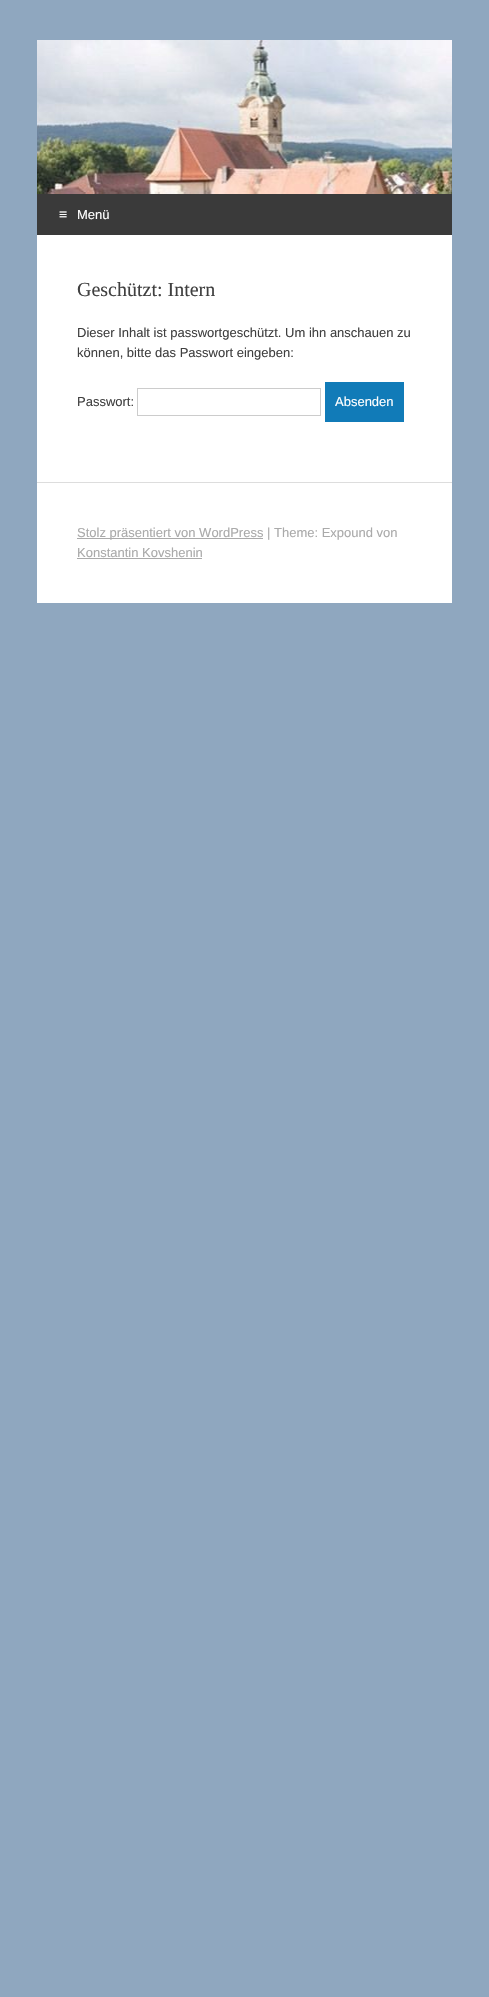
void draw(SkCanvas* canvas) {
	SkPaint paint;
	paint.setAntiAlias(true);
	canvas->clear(0xff8fa7bf);
	paint.setColor(0xffffffff);
	canvas->drawRect(SkRect::MakeXYWH(37, 235, 415, 368), paint);
	canvas->drawImageRect(SkImages::DeferredFromEncodedData(SkData::MakeFromFileName("img1.png")), SkRect::MakeXYWH(37, 40, 415, 154), SkSamplingOptions());
	paint.setColor(0xff3a3a3a);
	canvas->drawRect(SkRect::MakeXYWH(37, 194, 415, 41), paint);
	SkFont f1(fontMgr->matchFamilyStyle("Liberation Sans", SkFontStyle::Normal()), 14);
	f1.setSubpixel(true);
	paint.setColor(0xffffffff);
	canvas->drawString("≡", 59, 219, f1, paint);
	SkFont f2(fontMgr->matchFamilyStyle("Liberation Sans", SkFontStyle::Normal()), 13);
	f2.setSubpixel(true);
	canvas->drawString("Menü", 77, 219, f2, paint);
	paint.setColor(0xffdddddd);
	canvas->drawRect(SkRect::MakeXYWH(37, 482, 415, 1), paint);
	SkFont f3(fontMgr->matchFamilyStyle("Liberation Serif", SkFontStyle::Normal()), 20);
	f3.setSubpixel(true);
	paint.setColor(0xff404040);
	canvas->drawString("Geschützt: Intern", 77, 296, f3, paint);
	canvas->drawString("Dieser Inhalt ist passwortgeschützt. Um ihn anschauen zu", 77, 337, f2, paint);
	canvas->drawString("können, bitte das Passwort eingeben:", 77, 357, f2, paint);
	canvas->drawString("Passwort:", 77, 406, f2, paint);
	paint.setStroke(true);
	paint.setStrokeWidth(1);
	paint.setColor(0xffcccccc);
	canvas->drawRect(SkRect::MakeXYWH(137.5, 388.5, 183, 27), paint);
	paint.setStroke(false);
	paint.setColor(0xff117bb8);
	canvas->drawRect(SkRect::MakeXYWH(325, 382, 79, 40), paint);
	paint.setColor(0xffffffff);
	canvas->drawString("Absenden", 335, 406, f2, paint);
	paint.setColor(0xffaaaaaa);
	canvas->drawRect(SkRect::MakeXYWH(77, 538, 186, 1), paint);
	canvas->drawString("Stolz präsentiert von WordPress | Theme: Expound von", 77, 537, f2, paint);
	canvas->drawString("Konstantin Kovshenin", 77, 557, f2, paint);
	canvas->drawRect(SkRect::MakeXYWH(77, 558, 125, 1), paint);
}
